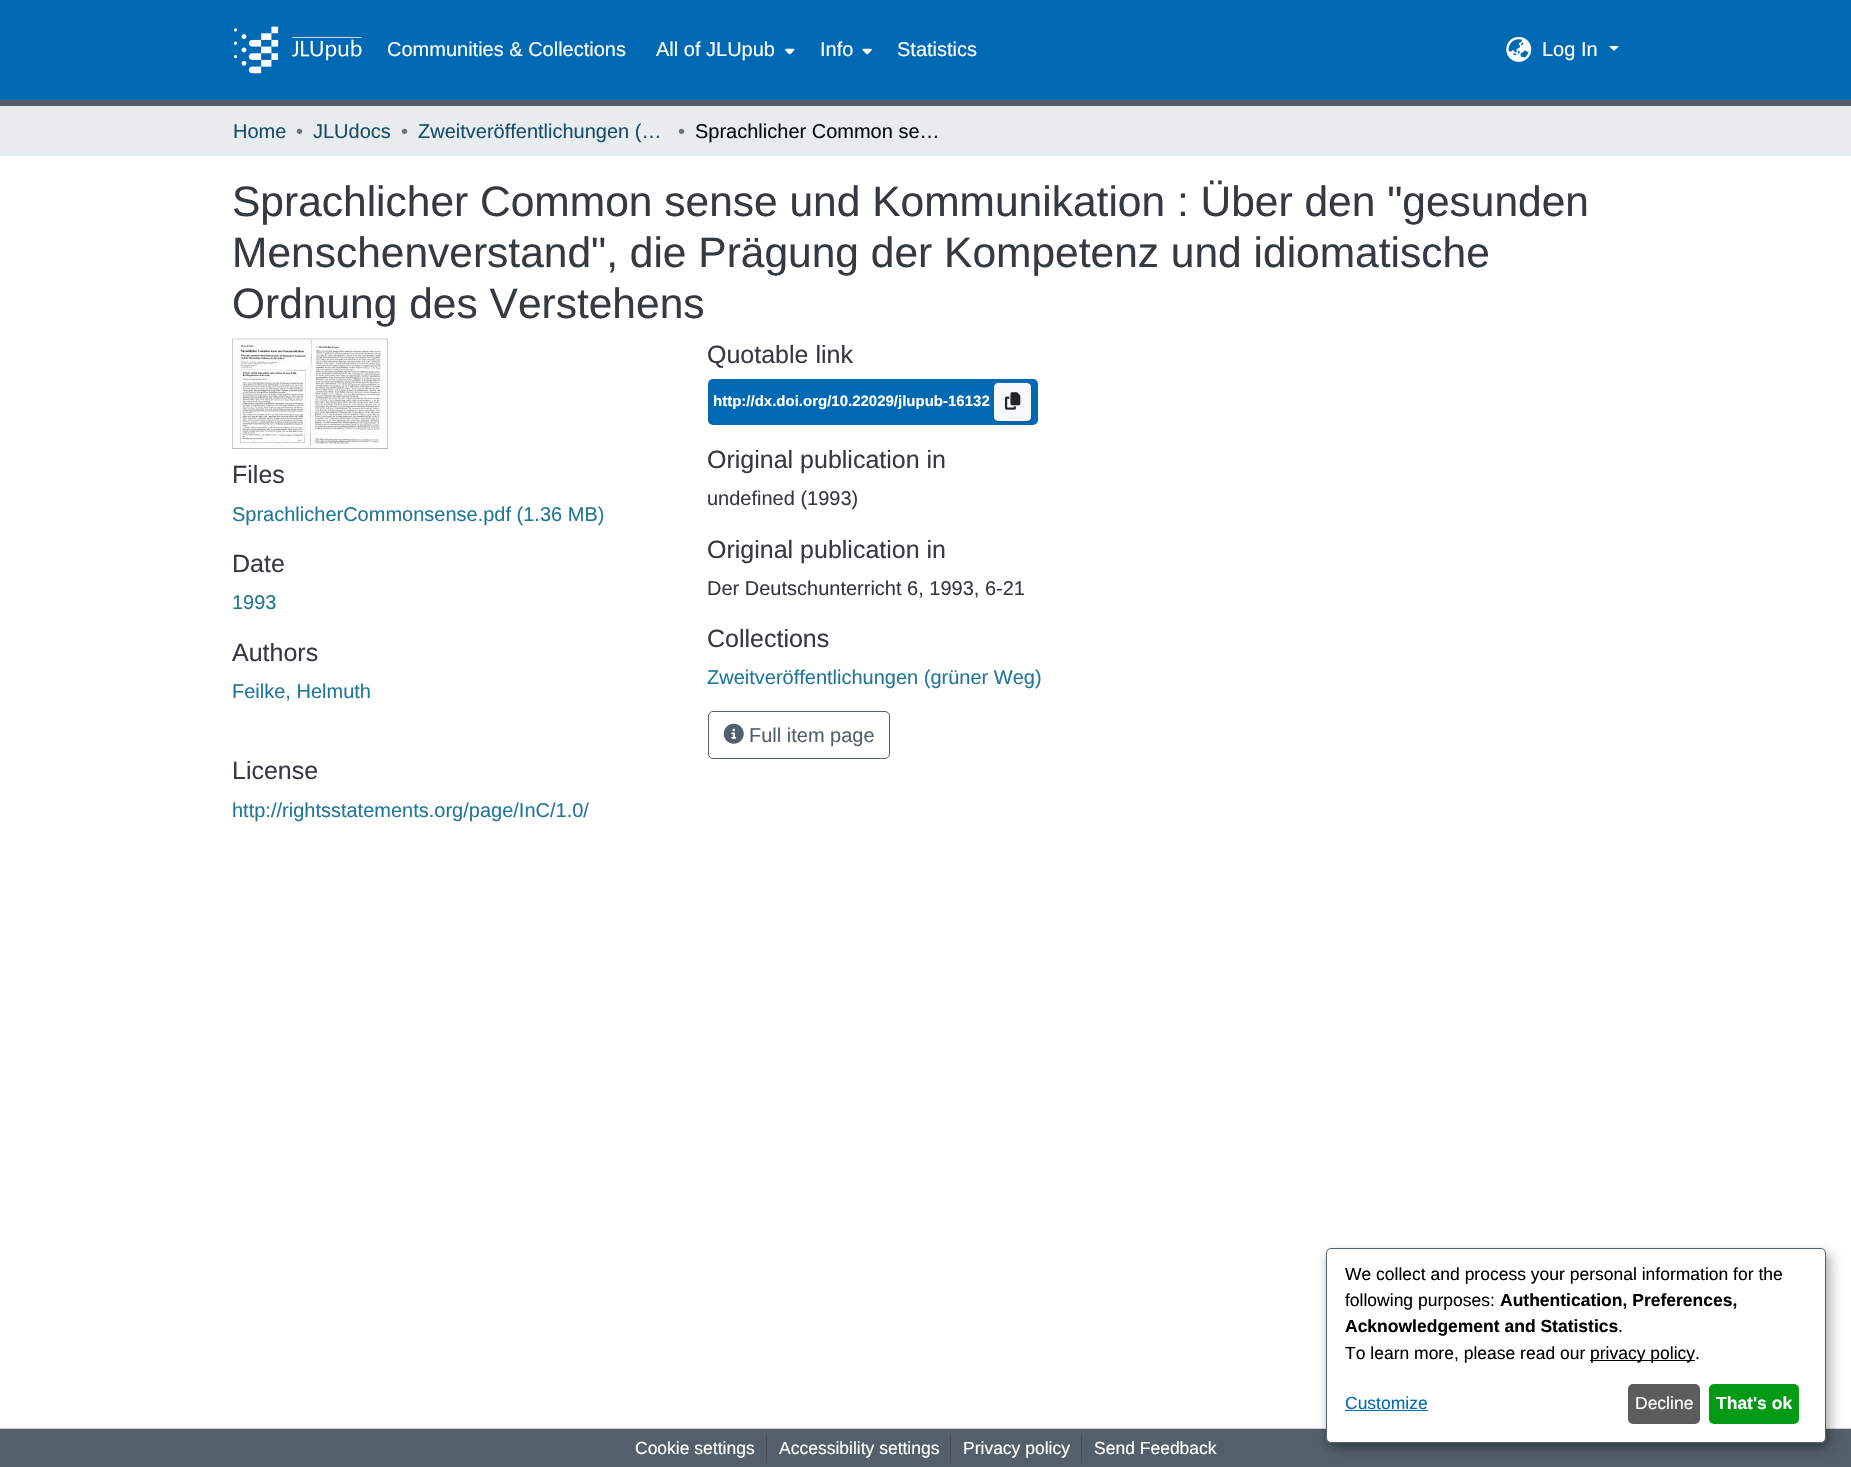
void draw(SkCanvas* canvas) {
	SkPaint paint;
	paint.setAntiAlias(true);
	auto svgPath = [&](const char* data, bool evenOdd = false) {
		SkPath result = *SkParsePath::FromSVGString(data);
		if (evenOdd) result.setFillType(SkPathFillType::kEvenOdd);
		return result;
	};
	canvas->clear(0xffffffff);
	paint.setColor(0xff53606b);
	canvas->drawRect(SkRect::MakeXYWH(0, 100, 1851, 6), paint);
	paint.setColor(0xff0069b3);
	canvas->drawRect(SkRect::MakeXYWH(0, 0, 1851, 100), paint);
	canvas->drawImageRect(SkImages::DeferredFromEncodedData(SkData::MakeFromFileName("img1.png")), SkRect::MakeXYWH(233, 26, 129, 48), SkSamplingOptions());
	SkFont f1(fontMgr->matchFamilyStyle("Liberation Sans", SkFontStyle::Normal()), 20);
	f1.setSubpixel(true);
	paint.setColor(0xffffffff);
	canvas->drawString("Communities & Collections", 387, 56, f1, paint);
	canvas->drawString("All of JLUpub", 656, 56, f1, paint);
	canvas->drawImageRect(SkImages::DeferredFromEncodedData(SkData::MakeFromFileName("img2.png")), SkRect::MakeXYWH(785, 48, 10, 7), SkSamplingOptions());
	canvas->drawString("Info", 820, 56, f1, paint);
	canvas->drawImageRect(SkImages::DeferredFromEncodedData(SkData::MakeFromFileName("img3.png")), SkRect::MakeXYWH(862, 48, 10, 7), SkSamplingOptions());
	canvas->drawString("Statistics", 897, 56, f1, paint);
	canvas->drawImageRect(SkImages::DeferredFromEncodedData(SkData::MakeFromFileName("img4.png")), SkRect::MakeXYWH(1506, 36, 26, 26), SkSamplingOptions());
	canvas->drawString("Log In", 1542, 56, f1, paint);
	canvas->drawPath(svgPath("M1609 46H1619L1614 51Z"), paint);
	paint.setColor(0xffe9ecef);
	canvas->drawRect(SkRect::MakeXYWH(0, 106, 1851, 50), paint);
	paint.setColor(0xff154e66);
	canvas->drawString("Home", 233, 138, f1, paint);
	paint.setColor(0xff6c757d);
	canvas->drawString("•", 296, 138, f1, paint);
	paint.setColor(0xff154e66);
	canvas->drawString("JLUdocs", 313, 138, f1, paint);
	paint.setColor(0xff6c757d);
	canvas->drawString("•", 401, 138, f1, paint);
	paint.setColor(0xff154e66);
	canvas->drawString("Zweitveröffentlichungen (…", 418, 138, f1, paint);
	paint.setColor(0xff6c757d);
	canvas->drawString("•", 678, 138, f1, paint);
	paint.setColor(0xff040d11);
	canvas->drawString("Sprachlicher Common se…", 695, 138, f1, paint);
	SkFont f2(fontMgr->matchFamilyStyle("Liberation Sans", SkFontStyle::Normal()), 42.5);
	f2.setSubpixel(true);
	paint.setColor(0xff343a40);
	canvas->drawString("Sprachlicher Common sense und Kommunikation : Über den \"gesunden", 232, 216, f2, paint);
	canvas->drawString("Menschenverstand\", die Prägung der Kompetenz und idiomatische", 232, 267, f2, paint);
	canvas->drawString("Ordnung des Verstehens", 232, 318, f2, paint);
	canvas->drawImageRect(SkImages::DeferredFromEncodedData(SkData::MakeFromFileName("img5.png")), SkRect::MakeXYWH(232, 338, 156, 111), SkSamplingOptions());
	SkFont f3(fontMgr->matchFamilyStyle("Liberation Sans", SkFontStyle::Normal()), 25);
	f3.setSubpixel(true);
	canvas->drawString("Files", 232, 483, f3, paint);
	paint.setColor(0xff207698);
	canvas->drawString("SprachlicherCommonsense.pdf (1.36 MB)", 232, 521, f1, paint);
	paint.setColor(0xff343a40);
	canvas->drawString("Date", 232, 572, f3, paint);
	paint.setColor(0xff207698);
	canvas->drawString("1993", 232, 609, f1, paint);
	paint.setColor(0xff343a40);
	canvas->drawString("Authors", 232, 661, f3, paint);
	paint.setColor(0xff207698);
	canvas->drawString("Feilke, Helmuth", 232, 698, f1, paint);
	paint.setColor(0xff343a40);
	canvas->drawString("License", 232, 779, f3, paint);
	paint.setColor(0xff207698);
	canvas->drawString("http://rightsstatements.org/page/InC/1.0/", 232, 817, f1, paint);
	paint.setColor(0xff343a40);
	canvas->drawString("Quotable link", 707, 363, f3, paint);
	paint.setColor(0xff0069b3);
	canvas->drawRoundRect(SkRect::MakeXYWH(708, 379, 330, 46), 5, 5, paint);
	SkFont f4(fontMgr->matchFamilyStyle("Liberation Sans", SkFontStyle::Bold()), 15);
	f4.setSubpixel(true);
	paint.setColor(0xffffffff);
	canvas->drawString("http://dx.doi.org/10.22029/jlupub-16132", 713, 406, f4, paint);
	paint.setColor(0x12000000);
	paint.setMaskFilter(SkMaskFilter::MakeBlur(kNormal_SkBlurStyle, 0.5));
	canvas->drawRoundRect(SkRect::MakeXYWH(994, 384, 37, 39), 4, 4, paint);
	paint.setMaskFilter(nullptr);
	paint.setColor(0xfff8f9fa);
	canvas->drawRoundRect(SkRect::MakeXYWH(994.5, 383.5, 36, 37), 3.5, 3.5, paint);
	paint.setStroke(true);
	paint.setStrokeWidth(1);
	canvas->drawRoundRect(SkRect::MakeXYWH(994.5, 383.5, 36, 37), 3.5, 3.5, paint);
	canvas->drawImageRect(SkImages::DeferredFromEncodedData(SkData::MakeFromFileName("img6.png")), SkRect::MakeXYWH(1005, 392, 16, 18), SkSamplingOptions());
	paint.setStroke(false);
	paint.setColor(0xff343a40);
	canvas->drawString("Original publication in", 707, 468, f3, paint);
	canvas->drawString("undefined (1993)", 707, 505, f1, paint);
	canvas->drawString("Original publication in", 707, 558, f3, paint);
	canvas->drawString("Der Deutschunterricht 6, 1993, 6-21", 707, 595, f1, paint);
	canvas->drawString("Collections", 707, 647, f3, paint);
	paint.setColor(0xff207698);
	canvas->drawString("Zweitveröffentlichungen (grüner Weg)", 707, 684, f1, paint);
	paint.setStroke(true);
	paint.setColor(0xff53606b);
	canvas->drawRoundRect(SkRect::MakeXYWH(708.5, 711.5, 181, 47), 4.5, 4.5, paint);
	canvas->drawImageRect(SkImages::DeferredFromEncodedData(SkData::MakeFromFileName("img7.png")), SkRect::MakeXYWH(723, 723, 21, 21), SkSamplingOptions());
	paint.setStroke(false);
	canvas->drawString("Full item page", 749, 742, f1, paint);
	canvas->drawRect(SkRect::MakeXYWH(0, 1429, 1851, 38), paint);
	paint.setColor(0xffced4da);
	canvas->drawRect(SkRect::MakeXYWH(0, 1428, 1851, 1), paint);
	SkFont f5(fontMgr->matchFamilyStyle("Liberation Sans", SkFontStyle::Normal()), 17.5);
	f5.setSubpixel(true);
	paint.setColor(0xffffffff);
	canvas->drawString("Cookie settings", 635, 1454, f5, paint);
	paint.setColor(0xff495057);
	canvas->drawRect(SkRect::MakeXYWH(766, 1434, 1, 29), paint);
	paint.setColor(0xffffffff);
	canvas->drawString("Accessibility settings", 779, 1454, f5, paint);
	paint.setColor(0xff495057);
	canvas->drawRect(SkRect::MakeXYWH(950, 1434, 1, 29), paint);
	paint.setColor(0xffffffff);
	canvas->drawString("Privacy policy", 963, 1454, f5, paint);
	paint.setColor(0xff495057);
	canvas->drawRect(SkRect::MakeXYWH(1081, 1434, 1, 29), paint);
	paint.setColor(0xffffffff);
	canvas->drawString("Send Feedback", 1094, 1454, f5, paint);
	paint.setColor(0x30000000);
	paint.setMaskFilter(SkMaskFilter::MakeBlur(kNormal_SkBlurStyle, 6));
	canvas->drawRoundRect(SkRect::MakeXYWH(1333, 1254, 500, 195), 5, 5, paint);
	paint.setMaskFilter(nullptr);
	paint.setColor(0x33000000);
	paint.setMaskFilter(SkMaskFilter::MakeBlur(kNormal_SkBlurStyle, 4));
	canvas->drawRoundRect(SkRect::MakeXYWH(1326, 1253, 500, 195), 5, 5, paint);
	paint.setMaskFilter(nullptr);
	paint.setColor(0xffffffff);
	canvas->drawRoundRect(SkRect::MakeXYWH(1326.5, 1248.5, 499, 194), 4.5, 4.5, paint);
	paint.setStroke(true);
	paint.setColor(0xff53606b);
	canvas->drawRoundRect(SkRect::MakeXYWH(1326.5, 1248.5, 499, 194), 4.5, 4.5, paint);
	paint.setStroke(false);
	paint.setColor(0xff000000);
	canvas->drawString("We collect and process your personal information for the", 1345, 1280, f5, paint);
	canvas->drawString("following purposes:", 1345, 1306, f5, paint);
	SkFont f6(fontMgr->matchFamilyStyle("Liberation Sans", SkFontStyle::Bold()), 17.5);
	f6.setSubpixel(true);
	canvas->drawString("Authentication, Preferences,", 1500, 1306, f6, paint);
	canvas->drawString("Acknowledgement and Statistics", 1345, 1332, f6, paint);
	canvas->drawString(".", 1618, 1332, f5, paint);
	canvas->drawString("To learn more, please read our", 1345, 1359, f5, paint);
	canvas->drawRect(SkRect::MakeXYWH(1590, 1360, 105, 1), paint);
	canvas->drawString("privacy policy.", 1590, 1359, f5, paint);
	paint.setColor(0xffffffff);
	canvas->drawRect(SkRect::MakeXYWH(1695, 1343, 1, 7), paint);
	paint.setColor(0xff0069b3);
	canvas->drawString("Customize", 1345, 1409, f5, paint);
	canvas->drawRect(SkRect::MakeXYWH(1345, 1410, 83, 1), paint);
	paint.setColor(0xff5c5c5c);
	canvas->drawRoundRect(SkRect::MakeXYWH(1628, 1384, 72, 40), 5, 5, paint);
	paint.setColor(0xffffffff);
	canvas->drawString("Decline", 1635, 1409, f5, paint);
	paint.setColor(0xff049a16);
	canvas->drawRoundRect(SkRect::MakeXYWH(1709, 1384, 90, 40), 5, 5, paint);
	paint.setColor(0xffffffff);
	canvas->drawString("That's ok", 1716, 1409, f6, paint);
}
